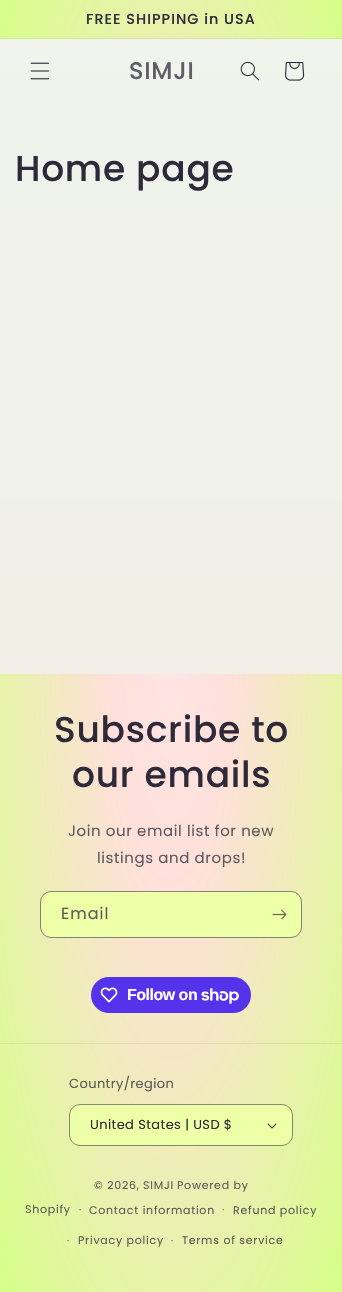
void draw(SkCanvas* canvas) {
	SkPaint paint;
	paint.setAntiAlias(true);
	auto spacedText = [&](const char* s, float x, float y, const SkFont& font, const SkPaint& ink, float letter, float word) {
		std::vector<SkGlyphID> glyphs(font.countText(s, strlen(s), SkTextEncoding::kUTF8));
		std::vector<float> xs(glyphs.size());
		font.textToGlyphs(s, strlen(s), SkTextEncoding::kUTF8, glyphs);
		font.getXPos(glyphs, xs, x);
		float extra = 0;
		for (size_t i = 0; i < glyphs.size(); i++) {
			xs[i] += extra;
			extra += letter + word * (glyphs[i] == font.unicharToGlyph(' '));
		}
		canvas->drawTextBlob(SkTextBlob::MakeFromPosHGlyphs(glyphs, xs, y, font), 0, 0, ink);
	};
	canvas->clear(0xffffffff);
	{
		const SkColor colors[] = {0xfff0f4ec, 0xfff1ebe2};
		const float stops[] = {0, 1};
		const SkPoint ends[] = {{171, 0}, {171, 1292}};
		paint.setShader(SkGradientShader::MakeLinear(ends, colors, stops, 2, SkTileMode::kClamp));
		paint.setAlpha(255);
	}
	canvas->drawRect(SkRect::MakeXYWH(0, 39, 342, 635), paint);
	{
		const SkColor colors[] = {0xffffe5e5, 0xffffe0da, 0xffd7ff89};
		const float stops[] = {0, 0.25, 1};
		SkMatrix m = SkMatrix::Translate(171, 646).preScale(242, 914);
		paint.setShader(SkGradientShader::MakeRadial({0, 0}, 1, colors, stops, 3, SkTileMode::kClamp, 0, &m));
		paint.setAlpha(255);
	}
	canvas->drawRect(SkRect::MakeXYWH(0, 0, 342, 38), paint);
	{
		const SkColor colors[] = {0xffeed6d7, 0xffeed1cd, 0xffc9ee83};
		const float stops[] = {0, 0.25, 1};
		SkMatrix m = SkMatrix::Translate(171, 646).preScale(242, 914);
		paint.setShader(SkGradientShader::MakeRadial({0, 0}, 1, colors, stops, 3, SkTileMode::kClamp, 0, &m));
		paint.setAlpha(255);
	}
	canvas->drawRect(SkRect::MakeXYWH(0, 38, 342, 1), paint);
	SkFont f1(fontMgr->matchFamilyStyle("Poppins", SkFontStyle(500, SkFontStyle::kNormal_Width, SkFontStyle::kUpright_Slant)), 14.4);
	f1.setSubpixel(true);
	paint.setShader(nullptr);
	paint.setColor(0xff2e2a39);
	spacedText("FREE SHIPPING in USA", 86, 24, f1, paint, 1, 0);
	canvas->drawImageRect(SkImages::DeferredFromEncodedData(SkData::MakeFromFileName("img1.png")), SkRect::MakeXYWH(30, 62, 20, 18), SkSamplingOptions());
	SkFont f2(fontMgr->matchFamilyStyle("Poppins", SkFontStyle(500, SkFontStyle::kNormal_Width, SkFontStyle::kUpright_Slant)), 24);
	f2.setSubpixel(true);
	paint.setColor(0xff5f5c66);
	spacedText("SIMJI", 129, 79, f2, paint, 0.75, 0);
	canvas->drawImageRect(SkImages::DeferredFromEncodedData(SkData::MakeFromFileName("img2.png")), SkRect::MakeXYWH(240, 61, 19, 20), SkSamplingOptions());
	canvas->drawImageRect(SkImages::DeferredFromEncodedData(SkData::MakeFromFileName("img3.png")), SkRect::MakeXYWH(285, 62, 20, 19), SkSamplingOptions());
	SkFont f3(fontMgr->matchFamilyStyle("Poppins", SkFontStyle(500, SkFontStyle::kNormal_Width, SkFontStyle::kUpright_Slant)), 36);
	f3.setSubpixel(true);
	paint.setColor(0xff2e2a39);
	spacedText("Home page", 15, 181, f3, paint, 0.75, 0);
	{
		const SkColor colors[] = {0xffffe5e5, 0xffffe0da, 0xffd7ff89};
		const float stops[] = {0, 0.25, 1};
		SkMatrix m = SkMatrix::Translate(171, 646).preScale(242, 914);
		paint.setShader(SkGradientShader::MakeRadial({0, 0}, 1, colors, stops, 3, SkTileMode::kClamp, 0, &m));
		paint.setAlpha(255);
	}
	canvas->drawRect(SkRect::MakeXYWH(0, 674, 342, 270), paint);
	paint.setShader(nullptr);
	paint.setColor(0xff2e2a39);
	spacedText("Subscribe to", 54, 742, f3, paint, 0.75, 0);
	spacedText("our emails", 72, 787, f3, paint, 0.75, 0);
	SkFont f4(fontMgr->matchFamilyStyle("Poppins", SkFontStyle::Normal()), 15);
	f4.setSubpixel(true);
	paint.setColor(0xff615860);
	spacedText("Join our email list for new", 68, 836, f4, paint, 0.6, 0);
	spacedText("listings and drops!", 97, 863, f4, paint, 0.6, 0);
	paint.setColor(0xffedffa7);
	canvas->drawRoundRect(SkRect::MakeXYWH(41, 892, 260, 45), 10, 10, paint);
	paint.setStroke(true);
	paint.setStrokeWidth(1);
	paint.setColor(0x8c2e2a39);
	canvas->drawRoundRect(SkRect::MakeXYWH(40.5, 891.5, 261, 46), 10.5, 10.5, paint);
	SkFont f5(fontMgr->matchFamilyStyle("Poppins", SkFontStyle::Normal()), 16);
	f5.setSubpixel(true);
	paint.setStroke(false);
	paint.setColor(0xff5d5b57);
	spacedText("Email", 61, 919, f5, paint, 1, 0);
	canvas->drawImageRect(SkImages::DeferredFromEncodedData(SkData::MakeFromFileName("img4.png")), SkRect::MakeXYWH(272, 909, 15, 11), SkSamplingOptions());
	{
		const SkColor colors[] = {0xffffe5e5, 0xffffe0da, 0xffd7ff89};
		const float stops[] = {0, 0.25, 1};
		SkMatrix m = SkMatrix::Translate(171, 646).preScale(242, 914);
		paint.setShader(SkGradientShader::MakeRadial({0, 0}, 1, colors, stops, 3, SkTileMode::kClamp, 0, &m));
		paint.setAlpha(255);
	}
	canvas->drawRect(SkRect::MakeXYWH(0, 944, 342, 348), paint);
	{
		const SkColor colors[] = {0xffeed6d7, 0xffeed1cd, 0xffc9ee83};
		const float stops[] = {0, 0.25, 1};
		SkMatrix m = SkMatrix::Translate(171, 646).preScale(242, 914);
		paint.setShader(SkGradientShader::MakeRadial({0, 0}, 1, colors, stops, 3, SkTileMode::kClamp, 0, &m));
		paint.setAlpha(255);
	}
	canvas->drawRect(SkRect::MakeXYWH(0, 1043, 342, 1), paint);
	paint.setShader(nullptr);
	paint.setColor(0xff5433eb);
	canvas->drawRoundRect(SkRect::MakeXYWH(91, 977, 160, 36), 18, 18, paint);
	canvas->drawImageRect(SkImages::DeferredFromEncodedData(SkData::MakeFromFileName("img5.png")), SkRect::MakeXYWH(100, 987, 18, 16), SkSamplingOptions());
	SkFont f6(fontMgr->matchFamilyStyle("Liberation Sans", SkFontStyle::Bold()), 16);
	f6.setSubpixel(true);
	paint.setColor(0xffffffff);
	spacedText("Follow on", 127, 1000, f6, paint, -0.5, 0);
	canvas->drawImageRect(SkImages::DeferredFromEncodedData(SkData::MakeFromFileName("img6.png")), SkRect::MakeXYWH(201, 988, 38, 16), SkSamplingOptions());
	SkFont f7(fontMgr->matchFamilyStyle("Poppins", SkFontStyle::Normal()), 13);
	f7.setSubpixel(true);
	paint.setColor(0xff5d5b57);
	spacedText("Country/region", 69, 1088, f7, paint, 0.4, 0);
	paint.setColor(0xffedffa7);
	canvas->drawRoundRect(SkRect::MakeXYWH(69, 1104, 224, 42), 11, 11, paint);
	canvas->drawImageRect(SkImages::DeferredFromEncodedData(SkData::MakeFromFileName("img7.png")), SkRect::MakeXYWH(267, 1123, 10, 6), SkSamplingOptions());
	paint.setStroke(true);
	paint.setColor(0x8c2e2a39);
	canvas->drawRoundRect(SkRect::MakeXYWH(69.5, 1104.5, 223, 41), 10.5, 10.5, paint);
	paint.setStroke(false);
	paint.setColor(0xff2e2a39);
	spacedText("United States | USD $", 90, 1129, f7, paint, 0.4, 0);
	SkFont f8(fontMgr->matchFamilyStyle("Poppins", SkFontStyle::Normal()), 11);
	f8.setSubpixel(true);
	paint.setColor(0xff5d5b57);
	spacedText("© 2026,", 94, 1189, f8, paint, 0.75, 0);
	spacedText("SIMJI", 143, 1189, f8, paint, 0.75, 0);
	spacedText("Powered by", 177, 1189, f8, paint, 0.75, 0);
	spacedText("Shopify", 25, 1213, f8, paint, 0.75, 0);
	SkFont f9(fontMgr->matchFamilyStyle("Poppins", SkFontStyle::Normal()), 10);
	f9.setSubpixel(true);
	spacedText("·", 79, 1213, f9, paint, 0.75, 0);
	spacedText("Contact information", 89, 1214, f8, paint, 0.75, 0);
	spacedText("·", 222, 1213, f9, paint, 0.75, 0);
	spacedText("Refund policy", 233, 1214, f8, paint, 0.75, 0);
	spacedText("·", 67, 1244, f9, paint, 0.75, 0);
	spacedText("Privacy policy", 78, 1244, f8, paint, 0.75, 0);
	spacedText("·", 171, 1244, f9, paint, 0.75, 0);
	spacedText("Terms of service", 182, 1244, f8, paint, 0.75, 0);
}
